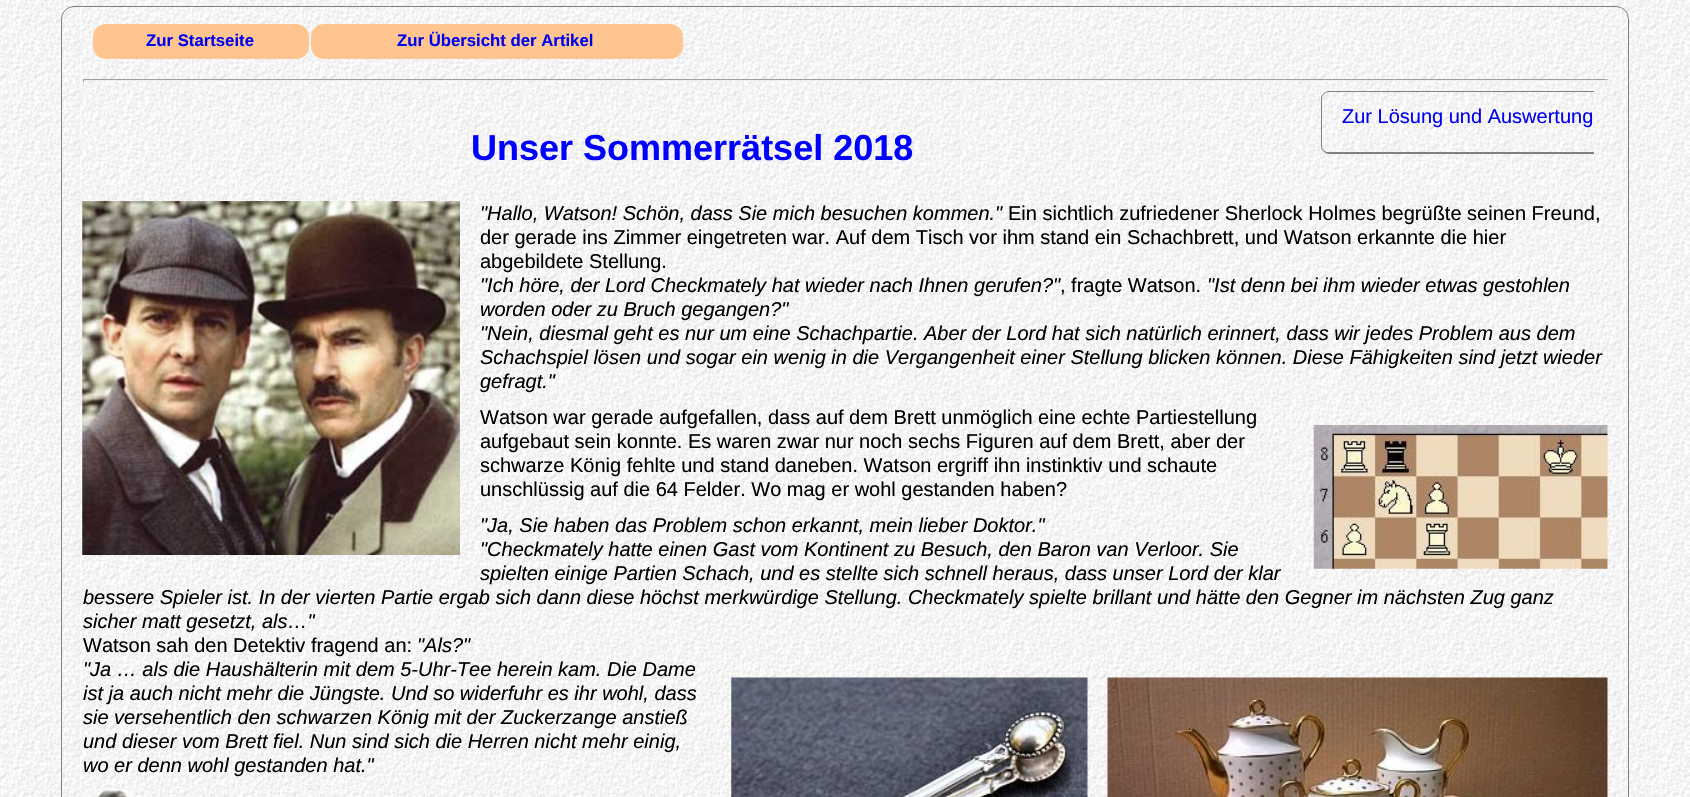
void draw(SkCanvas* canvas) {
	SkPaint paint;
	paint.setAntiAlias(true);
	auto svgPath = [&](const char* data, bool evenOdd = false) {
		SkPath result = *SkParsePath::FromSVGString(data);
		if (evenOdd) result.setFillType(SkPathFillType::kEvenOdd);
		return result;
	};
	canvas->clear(0xffffffff);
	canvas->drawImageRect(SkImages::DeferredFromEncodedData(SkData::MakeFromFileName("img1.png")), SkRect::MakeXYWH(0, 0, 1690, 797), SkSamplingOptions());
	paint.setStroke(true);
	paint.setStrokeWidth(1);
	paint.setColor(0xff808080);
	canvas->drawRoundRect(SkRect::MakeXYWH(61.5, 6.5, 1567, 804), 12.5, 12.5, paint);
	paint.setStroke(false);
	paint.setColor(0xffffc590);
	canvas->drawRoundRect(SkRect::MakeXYWH(93, 24, 216, 35), 13, 13, paint);
	SkFont f1(fontMgr->matchFamilyStyle("Liberation Sans", SkFontStyle::Bold()), 16.75);
	f1.setSubpixel(true);
	paint.setColor(0xff0000ee);
	canvas->drawString("Zur Startseite", 146, 46, f1, paint);
	paint.setColor(0xffffc590);
	canvas->drawRoundRect(SkRect::MakeXYWH(311, 24, 372, 35), 13, 13, paint);
	paint.setColor(0xff0000ee);
	canvas->drawString("Zur Übersicht der Artikel", 397, 46, f1, paint);
	paint.setColor(0xff9f9f9f);
	canvas->drawRect(SkRect::MakeXYWH(83, 79, 1525, 1), paint);
	paint.setColor(0xffeeeeee);
	canvas->drawRect(SkRect::MakeXYWH(1606, 79, 1, 3), paint);
	canvas->drawRect(SkRect::MakeXYWH(83, 80, 1525, 1), paint);
	paint.setColor(0xff9f9f9f);
	canvas->drawRect(SkRect::MakeXYWH(83, 79, 1, 3), paint);
	paint.setColor(0xff808080);
	canvas->drawPath(svgPath("M1329 91H1594V154H1329C1325 154 1321 150 1321 146V99C1321 95 1325 91 1329 91ZM1329 92H1594V152H1329C1325 152 1322 150 1322 146V99C1322 95 1325 92 1329 92Z", true), paint);
	SkFont f2(fontMgr->matchFamilyStyle("Liberation Sans", SkFontStyle::Normal()), 20);
	f2.setSubpixel(true);
	paint.setColor(0xff0000ee);
	canvas->drawString("Zur Lösung und Auswertung", 1342, 123, f2, paint);
	SkFont f3(fontMgr->matchFamilyStyle("Liberation Sans", SkFontStyle::Bold()), 36);
	f3.setSubpixel(true);
	paint.setColor(0xff0000ff);
	canvas->drawString("Unser Sommerrätsel 2018", 471, 160, f3, paint);
	canvas->drawImageRect(SkImages::DeferredFromEncodedData(SkData::MakeFromFileName("img2.png")), SkRect::MakeXYWH(82, 201, 378, 354), SkSamplingOptions());
	canvas->drawImageRect(SkImages::DeferredFromEncodedData(SkData::MakeFromFileName("img3.png")), SkRect::MakeXYWH(82, 201, 378, 354), SkSamplingOptions());
	SkFont f4(fontMgr->matchFamilyStyle("Liberation Sans", SkFontStyle::Italic()), 20);
	f4.setSubpixel(true);
	paint.setColor(0xff000000);
	canvas->drawString("\"Hallo, Watson! Schön, dass Sie mich besuchen kommen.\"", 480, 220, f4, paint);
	canvas->drawString("Ein sichtlich zufriedener Sherlock Holmes begrüßte seinen Freund,", 1008, 220, f2, paint);
	canvas->drawString("der gerade ins Zimmer eingetreten war. Auf dem Tisch vor ihm stand ein Schachbrett, und Watson erkannte die hier", 480, 244, f2, paint);
	canvas->drawString("abgebildete Stellung.", 480, 268, f2, paint);
	canvas->drawString("\"Ich höre, der Lord Checkmately hat wieder nach Ihnen gerufen?\"", 480, 292, f4, paint);
	canvas->drawString(", fragte Watson.", 1060, 292, f2, paint);
	canvas->drawString("\"Ist denn bei ihm wieder etwas gestohlen", 1207, 292, f4, paint);
	canvas->drawString("worden oder zu Bruch gegangen?\"", 480, 316, f4, paint);
	canvas->drawString("\"Nein, diesmal geht es nur um eine Schachpartie. Aber der Lord hat sich natürlich erinnert, dass wir jedes Problem aus dem", 480, 340, f4, paint);
	canvas->drawString("Schachspiel lösen und sogar ein wenig in die Vergangenheit einer Stellung blicken können. Diese Fähigkeiten sind jetzt wieder", 480, 364, f4, paint);
	canvas->drawString("gefragt.\"", 480, 388, f4, paint);
	canvas->drawString("Watson war gerade aufgefallen, dass auf dem Brett unmöglich eine echte Partiestellung", 480, 424, f2, paint);
	canvas->drawString("aufgebaut sein konnte. Es waren zwar nur noch sechs Figuren auf dem Brett, aber der", 480, 448, f2, paint);
	canvas->drawImageRect(SkImages::DeferredFromEncodedData(SkData::MakeFromFileName("img4.png")), SkRect::MakeXYWH(1313, 425, 295, 144), SkSamplingOptions());
	canvas->drawString("schwarze König fehlte und stand daneben. Watson ergriff ihn instinktiv und schaute", 480, 472, f2, paint);
	canvas->drawString("unschlüssig auf die 64 Felder. Wo mag er wohl gestanden haben?", 480, 496, f2, paint);
	canvas->drawString("\"Ja, Sie haben das Problem schon erkannt, mein lieber Doktor.\"", 480, 532, f4, paint);
	canvas->drawString("\"Checkmately hatte einen Gast vom Kontinent zu Besuch, den Baron van Verloor. Sie", 480, 556, f4, paint);
	canvas->drawString("spielten einige Partien Schach, und es stellte sich schnell heraus, dass unser Lord der klar", 480, 580, f4, paint);
	canvas->drawString("bessere Spieler ist. In der vierten Partie ergab sich dann diese höchst merkwürdige Stellung. Checkmately spielte brillant und hätte den Gegner im nächsten Zug ganz", 83, 604, f4, paint);
	canvas->drawString("sicher matt gesetzt, als…\"", 83, 628, f4, paint);
	canvas->drawString("Watson sah den Detektiv fragend an:", 83, 652, f2, paint);
	canvas->drawString("\"Als?\"", 417, 652, f4, paint);
	canvas->drawString("\"Ja … als die Haushälterin mit dem 5-Uhr-Tee herein kam. Die Dame", 83, 676, f4, paint);
	canvas->drawString("ist ja auch nicht mehr die Jüngste. Und so widerfuhr es ihr wohl, dass", 83, 700, f4, paint);
	canvas->drawImageRect(SkImages::DeferredFromEncodedData(SkData::MakeFromFileName("img5.png")), SkRect::MakeXYWH(731, 677, 357, 120), SkSamplingOptions());
	canvas->drawImageRect(SkImages::DeferredFromEncodedData(SkData::MakeFromFileName("img6.png")), SkRect::MakeXYWH(1107, 677, 501, 120), SkSamplingOptions());
	canvas->drawString("sie versehentlich den schwarzen König mit der Zuckerzange anstieß", 83, 724, f4, paint);
	canvas->drawString("und dieser vom Brett fiel. Nun sind sich die Herren nicht mehr einig,", 83, 748, f4, paint);
	canvas->drawString("wo er denn wohl gestanden hat.\"", 83, 772, f4, paint);
	canvas->drawImageRect(SkImages::DeferredFromEncodedData(SkData::MakeFromFileName("img7.png")), SkRect::MakeXYWH(93, 788, 232, 9), SkSamplingOptions());
	canvas->drawImageRect(SkImages::DeferredFromEncodedData(SkData::MakeFromFileName("img8.png")), SkRect::MakeXYWH(101, 788, 214, 5), SkSamplingOptions());
}
